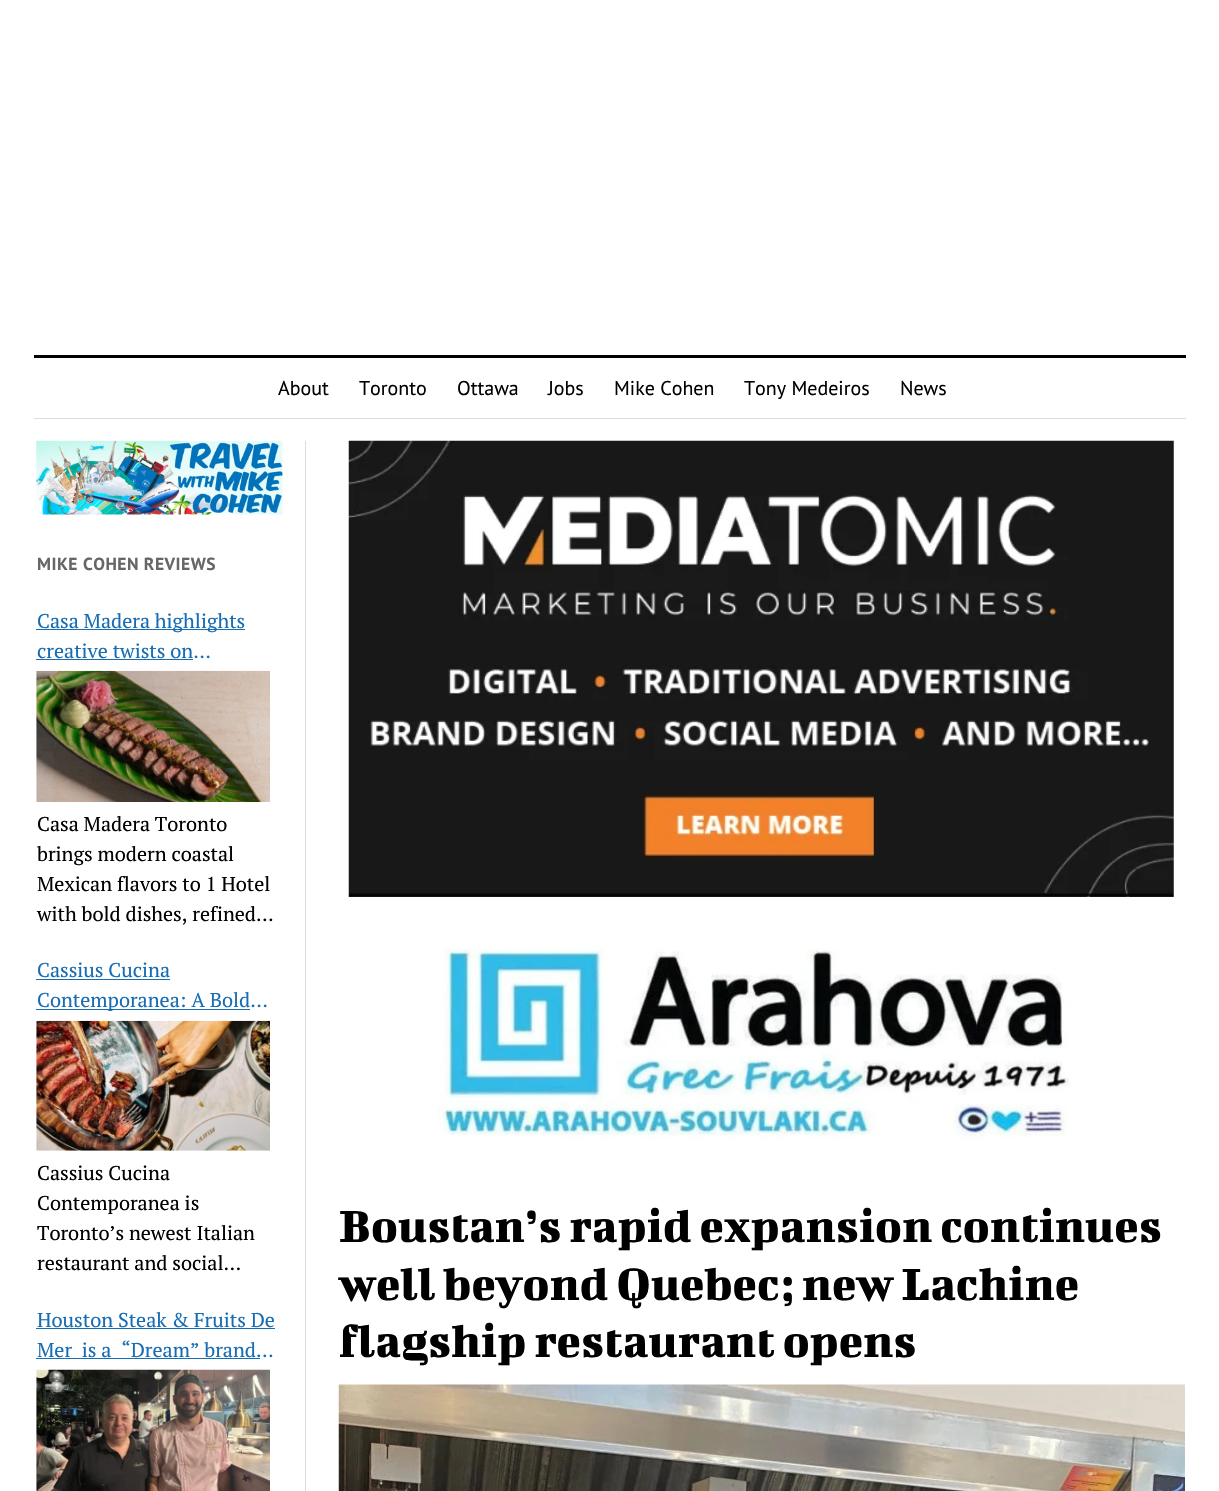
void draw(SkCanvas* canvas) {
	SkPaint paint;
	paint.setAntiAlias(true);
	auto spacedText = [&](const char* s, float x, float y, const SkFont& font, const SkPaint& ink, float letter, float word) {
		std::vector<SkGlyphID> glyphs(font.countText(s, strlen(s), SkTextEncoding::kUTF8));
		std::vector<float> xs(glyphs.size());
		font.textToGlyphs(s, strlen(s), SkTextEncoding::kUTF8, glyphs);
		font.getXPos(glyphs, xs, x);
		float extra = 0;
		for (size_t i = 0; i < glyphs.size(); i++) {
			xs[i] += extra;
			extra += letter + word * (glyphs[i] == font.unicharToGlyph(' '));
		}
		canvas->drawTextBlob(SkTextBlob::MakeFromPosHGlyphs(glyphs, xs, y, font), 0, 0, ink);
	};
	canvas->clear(0xffffffff);
	paint.setColor(0xff000000);
	canvas->drawRect(SkRect::MakeXYWH(34, 355, 1152, 3), paint);
	paint.setColor(0xffdcdcdc);
	canvas->drawRect(SkRect::MakeXYWH(34, 418, 1152, 1), paint);
	SkFont f1(fontMgr->matchFamilyStyle("PT Sans", SkFontStyle::Normal()), 20);
	f1.setSubpixel(true);
	paint.setColor(0xff000000);
	canvas->drawString("About", 278, 395, f1, paint);
	canvas->drawString("Toronto", 359, 395, f1, paint);
	canvas->drawString("Ottawa", 457, 395, f1, paint);
	canvas->drawString("Jobs", 548, 395, f1, paint);
	canvas->drawString("Mike Cohen", 614, 395, f1, paint);
	canvas->drawString("Tony Medeiros", 744, 395, f1, paint);
	canvas->drawString("News", 900, 395, f1, paint);
	paint.setColor(0xffdcdcdc);
	canvas->drawRect(SkRect::MakeXYWH(305, 441, 1, 1050), paint);
	canvas->drawImageRect(SkImages::DeferredFromEncodedData(SkData::MakeFromFileName("img1.png")), SkRect::MakeXYWH(36, 440, 247, 75), SkSamplingOptions());
	SkFont f2(fontMgr->matchFamilyStyle("PT Sans", SkFontStyle::Bold()), 17.5);
	f2.setSubpixel(true);
	paint.setColor(0xff666666);
	spacedText("MIKE COHEN REVIEWS", 37, 570, f2, paint, 0.5, 0);
	paint.setColor(0xff176db3);
	canvas->drawRect(SkRect::MakeXYWH(36, 629, 209, 1), paint);
	SkFont f3(fontMgr->matchFamilyStyle("PT Serif", SkFontStyle::Normal()), 20);
	f3.setSubpixel(true);
	canvas->drawString("Casa Madera highlights", 37, 628, f3, paint);
	canvas->drawString("creative twists on…", 37, 658, f3, paint);
	canvas->drawRect(SkRect::MakeXYWH(36, 659, 157, 1), paint);
	canvas->drawImageRect(SkImages::DeferredFromEncodedData(SkData::MakeFromFileName("img2.png")), SkRect::MakeXYWH(36, 670, 234, 132), SkSamplingOptions());
	paint.setColor(0xff000000);
	canvas->drawString("Casa Madera Toronto", 37, 831, f3, paint);
	canvas->drawString("brings modern coastal", 37, 861, f3, paint);
	canvas->drawString("Mexican flavors to 1 Hotel", 37, 891, f3, paint);
	canvas->drawString("with bold dishes, refined…", 37, 921, f3, paint);
	paint.setColor(0xff176db3);
	canvas->drawString("Cassius Cucina", 37, 977, f3, paint);
	canvas->drawRect(SkRect::MakeXYWH(36, 979, 134, 1), paint);
	canvas->drawRect(SkRect::MakeXYWH(36, 1009, 214, 1), paint);
	canvas->drawString("Contemporanea: A Bold…", 37, 1007, f3, paint);
	canvas->drawImageRect(SkImages::DeferredFromEncodedData(SkData::MakeFromFileName("img3.png")), SkRect::MakeXYWH(36, 1020, 234, 131), SkSamplingOptions());
	paint.setColor(0xff000000);
	canvas->drawString("Cassius Cucina", 37, 1180, f3, paint);
	canvas->drawString("Contemporanea is", 37, 1210, f3, paint);
	canvas->drawString("Toronto’s newest Italian", 37, 1240, f3, paint);
	canvas->drawString("restaurant and social…", 37, 1270, f3, paint);
	paint.setColor(0xff176db3);
	canvas->drawString("Houston Steak & Fruits De", 37, 1327, f3, paint);
	canvas->drawRect(SkRect::MakeXYWH(36, 1328, 239, 1), paint);
	canvas->drawString("Mer  is a  “Dream” brand…", 37, 1357, f3, paint);
	canvas->drawRect(SkRect::MakeXYWH(36, 1358, 224, 1), paint);
	canvas->drawImageRect(SkImages::DeferredFromEncodedData(SkData::MakeFromFileName("img4.png")), SkRect::MakeXYWH(36, 1369, 234, 122), SkSamplingOptions());
	canvas->drawImageRect(SkImages::DeferredFromEncodedData(SkData::MakeFromFileName("img5.png")), SkRect::MakeXYWH(348, 440, 826, 457), SkSamplingOptions());
	canvas->drawImageRect(SkImages::DeferredFromEncodedData(SkData::MakeFromFileName("img6.png")), SkRect::MakeXYWH(437, 948, 633, 193), SkSamplingOptions());
	SkFont f4(fontMgr->matchFamilyStyle("Bigshot One", SkFontStyle::Normal()), 50.25);
	f4.setSubpixel(true);
	paint.setColor(0xff000000);
	canvas->drawString("Boustan’s rapid expansion continues", 339, 1242, f4, paint);
	canvas->drawString("well beyond Quebec; new Lachine", 339, 1300, f4, paint);
	canvas->drawString("flagship restaurant opens", 339, 1357, f4, paint);
	canvas->drawImageRect(SkImages::DeferredFromEncodedData(SkData::MakeFromFileName("img7.png")), SkRect::MakeXYWH(338, 1384, 847, 107), SkSamplingOptions());
}
